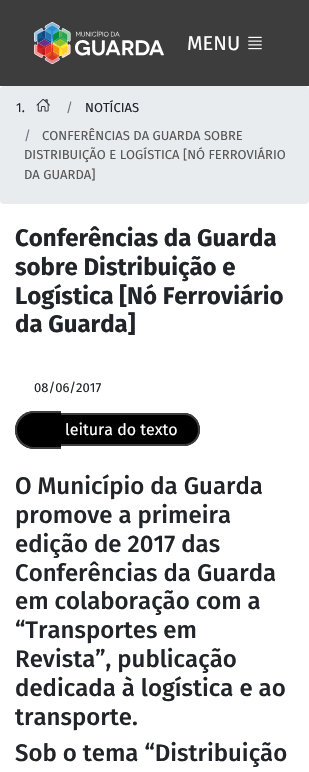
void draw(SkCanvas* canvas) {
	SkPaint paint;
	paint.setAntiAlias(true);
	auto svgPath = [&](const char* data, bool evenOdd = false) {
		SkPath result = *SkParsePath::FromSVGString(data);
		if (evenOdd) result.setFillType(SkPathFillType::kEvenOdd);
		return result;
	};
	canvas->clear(0xffffffff);
	paint.setColor(0xff3d3d3d);
	canvas->drawRect(SkRect::MakeXYWH(0, 0, 309, 86), paint);
	canvas->drawImageRect(SkImages::DeferredFromEncodedData(SkData::MakeFromFileName("img1.png")), SkRect::MakeXYWH(34, 22, 130, 42), SkSamplingOptions());
	SkFont f1(fontMgr->matchFamilyStyle("Fira Sans", SkFontStyle::Normal()), 20);
	f1.setSubpixel(true);
	paint.setColor(0xffffffff);
	canvas->drawString("MENU", 187, 50, f1, paint);
	canvas->drawImageRect(SkImages::DeferredFromEncodedData(SkData::MakeFromFileName("img2.png")), SkRect::MakeXYWH(248, 36, 14, 14), SkSamplingOptions());
	paint.setColor(0xffe9ecef);
	canvas->drawRoundRect(SkRect::MakeXYWH(0, 86, 309, 118), 4, 4, paint);
	SkFont f2(fontMgr->matchFamilyStyle("Fira Sans", SkFontStyle::Normal()), 13);
	f2.setSubpixel(true);
	paint.setColor(0xff212529);
	canvas->drawString("1.", 16, 112, f2, paint);
	canvas->drawImageRect(SkImages::DeferredFromEncodedData(SkData::MakeFromFileName("img3.png")), SkRect::MakeXYWH(36, 98, 14, 14), SkSamplingOptions());
	paint.setColor(0xff6c757d);
	canvas->drawString("/", 66, 112, f2, paint);
	paint.setColor(0xff212529);
	canvas->drawString("NOTÍCIAS", 85, 112, f2, paint);
	paint.setColor(0xff6c757d);
	canvas->drawString("/", 24, 140, f2, paint);
	paint.setColor(0xff575757);
	canvas->drawString("CONFERÊNCIAS DA GUARDA SOBRE", 42, 140, f2, paint);
	canvas->drawString("DISTRIBUIÇÃO E LOGÍSTICA [NÓ FERROVIÁRIO", 24, 159, f2, paint);
	canvas->drawString("DA GUARDA]", 24, 179, f2, paint);
	SkFont f3(fontMgr->matchFamilyStyle("Fira Sans", SkFontStyle::Bold()), 24);
	f3.setSubpixel(true);
	paint.setColor(0xff212529);
	canvas->drawString("Conferências da Guarda", 15, 246, f3, paint);
	canvas->drawString("sobre Distribuição e", 15, 275, f3, paint);
	canvas->drawString("Logística [Nó Ferroviário", 15, 304, f3, paint);
	canvas->drawString("da Guarda]", 15, 332, f3, paint);
	canvas->drawString("08/06/2017", 34, 392, f2, paint);
	paint.setColor(0xff000000);
	canvas->drawPath(svgPath("M61 413H183.5C192.5 413 200 420.5 200 429.5C200 438.5 192.5 446 183.5 446H61Z"), paint);
	paint.setColor(0xff3d3d3d);
	canvas->drawPath(svgPath("M61 413H184C193 413 200 420 200 430C200 439 193 446 184 446H61ZM61 415H184C192 415 198 421 198 430C198 438 192 444 184 444H61Z", true), paint);
	SkFont f4(fontMgr->matchFamilyStyle("Fira Sans", SkFontStyle::Normal()), 16);
	f4.setSubpixel(true);
	paint.setColor(0xffffffff);
	canvas->drawString("leitura do texto", 65, 435, f4, paint);
	paint.setColor(0xff000000);
	canvas->drawPath(svgPath("M34 411H61V449H34C23.5 449 15 440.5 15 430C15 419.5 23.5 411 34 411Z"), paint);
	paint.setColor(0xff3d3d3d);
	canvas->drawPath(svgPath("M34 411H61V449H34C24 449 15 440 15 430C15 420 24 411 34 411ZM34 413H61V447H34C25 447 17 439 17 430C17 421 25 413 34 413Z", true), paint);
	SkFont f5(fontMgr->matchFamilyStyle("Fira Sans", SkFontStyle(500, SkFontStyle::kNormal_Width, SkFontStyle::kUpright_Slant)), 24);
	f5.setSubpixel(true);
	paint.setColor(0xff212529);
	canvas->drawString("O Município da Guarda", 15, 494, f5, paint);
	canvas->drawString("promove a primeira", 15, 523, f5, paint);
	canvas->drawString("edição de 2017 das", 15, 552, f5, paint);
	canvas->drawString("Conferências da Guarda", 15, 581, f5, paint);
	canvas->drawString("em colaboração com a", 15, 609, f5, paint);
	canvas->drawString("“Transportes em", 15, 638, f5, paint);
	canvas->drawString("Revista”, publicação", 15, 667, f5, paint);
	canvas->drawString("dedicada à logística e ao", 15, 696, f5, paint);
	canvas->drawString("transporte.", 15, 725, f5, paint);
	canvas->drawString("Sob o tema “Distribuição", 15, 761, f5, paint);
}
